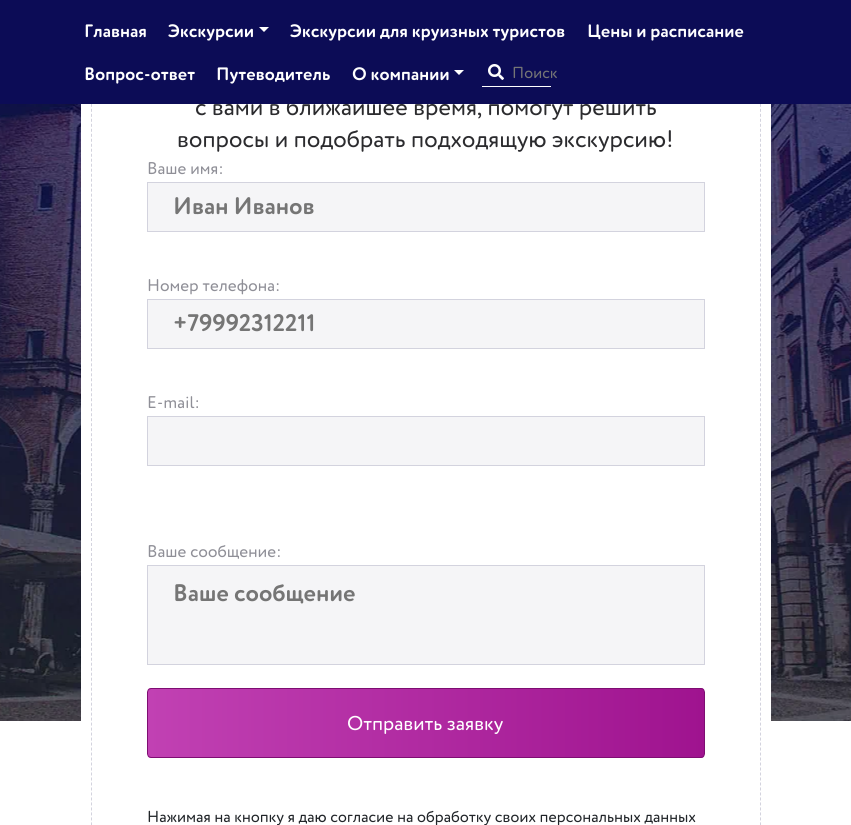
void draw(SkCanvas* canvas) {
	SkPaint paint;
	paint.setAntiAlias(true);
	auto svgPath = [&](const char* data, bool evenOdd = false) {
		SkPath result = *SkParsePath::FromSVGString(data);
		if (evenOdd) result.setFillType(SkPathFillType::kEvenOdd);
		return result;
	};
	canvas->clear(0xffffffff);
	canvas->drawImageRect(SkImages::DeferredFromEncodedData(SkData::MakeFromFileName("img10.png")), SkRect::MakeXYWH(0, 104, 851, 617), SkSamplingOptions());
	paint.setColor(0xffffffff);
	canvas->drawRect(SkRect::MakeXYWH(81, 104, 690, 617), paint);
	paint.setStroke(true);
	paint.setStrokeWidth(1);
	paint.setColor(0xffd3d3de);
	paint.setPathEffect(SkDashPathEffect::Make({{3, 1.99f}}, 0));
	canvas->drawPath(svgPath("M760.5 29V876"), paint);
	paint.setPathEffect(nullptr);
	paint.setPathEffect(SkDashPathEffect::Make({{3, 1.99f}}, 0));
	canvas->drawPath(svgPath("M91.5 29V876"), paint);
	paint.setPathEffect(nullptr);
	paint.setStroke(false);
	paint.setColor(0xff0c0c56);
	canvas->drawRect(SkRect::MakeXYWH(0, 0, 851, 104), paint);
	canvas->drawImageRect(SkImages::DeferredFromEncodedData(SkData::MakeFromFileName("img1.png")), SkRect::MakeXYWH(85, 24, 61, 14), SkSamplingOptions());
	canvas->drawImageRect(SkImages::DeferredFromEncodedData(SkData::MakeFromFileName("img2.png")), SkRect::MakeXYWH(168, 24, 85, 17), SkSamplingOptions());
	paint.setColor(0xffffffff);
	canvas->drawPath(svgPath("M259 27H269L264 32Z"), paint);
	canvas->drawImageRect(SkImages::DeferredFromEncodedData(SkData::MakeFromFileName("img3.png")), SkRect::MakeXYWH(290, 24, 275, 17), SkSamplingOptions());
	canvas->drawImageRect(SkImages::DeferredFromEncodedData(SkData::MakeFromFileName("img4.png")), SkRect::MakeXYWH(588, 24, 156, 17), SkSamplingOptions());
	canvas->drawImageRect(SkImages::DeferredFromEncodedData(SkData::MakeFromFileName("img5.png")), SkRect::MakeXYWH(85, 67, 110, 17), SkSamplingOptions());
	canvas->drawImageRect(SkImages::DeferredFromEncodedData(SkData::MakeFromFileName("img6.png")), SkRect::MakeXYWH(217, 67, 113, 17), SkSamplingOptions());
	canvas->drawImageRect(SkImages::DeferredFromEncodedData(SkData::MakeFromFileName("img7.png")), SkRect::MakeXYWH(352, 67, 97, 14), SkSamplingOptions());
	canvas->drawPath(svgPath("M454 70H464L459 75Z"), paint);
	canvas->drawRect(SkRect::MakeXYWH(482, 86, 69, 1), paint);
	canvas->drawImageRect(SkImages::DeferredFromEncodedData(SkData::MakeFromFileName("img8.png")), SkRect::MakeXYWH(488, 64, 16, 16), SkSamplingOptions());
	canvas->drawImageRect(SkImages::DeferredFromEncodedData(SkData::MakeFromFileName("img9.png")), SkRect::MakeXYWH(513, 66, 44, 13), SkSamplingOptions());
	canvas->drawImageRect(SkImages::DeferredFromEncodedData(SkData::MakeFromFileName("img11.png")), SkRect::MakeXYWH(196, 104, 460, 16), SkSamplingOptions());
	canvas->drawImageRect(SkImages::DeferredFromEncodedData(SkData::MakeFromFileName("img12.png")), SkRect::MakeXYWH(178, 130, 494, 22), SkSamplingOptions());
	canvas->drawImageRect(SkImages::DeferredFromEncodedData(SkData::MakeFromFileName("img13.png")), SkRect::MakeXYWH(148, 162, 74, 13), SkSamplingOptions());
	paint.setColor(0xfff5f5f7);
	canvas->drawRect(SkRect::MakeXYWH(147.5, 182.5, 557, 49), paint);
	paint.setStroke(true);
	paint.setColor(0xffd3d3de);
	canvas->drawRect(SkRect::MakeXYWH(147.5, 182.5, 557, 49), paint);
	canvas->drawImageRect(SkImages::DeferredFromEncodedData(SkData::MakeFromFileName("img14.png")), SkRect::MakeXYWH(175, 197, 139, 18), SkSamplingOptions());
	canvas->drawImageRect(SkImages::DeferredFromEncodedData(SkData::MakeFromFileName("img15.png")), SkRect::MakeXYWH(148, 279, 131, 16), SkSamplingOptions());
	paint.setStroke(false);
	paint.setColor(0xfff5f5f7);
	canvas->drawRect(SkRect::MakeXYWH(147.5, 299.5, 557, 49), paint);
	paint.setStroke(true);
	paint.setColor(0xffd3d3de);
	canvas->drawRect(SkRect::MakeXYWH(147.5, 299.5, 557, 49), paint);
	canvas->drawImageRect(SkImages::DeferredFromEncodedData(SkData::MakeFromFileName("img16.png")), SkRect::MakeXYWH(174, 313, 140, 19), SkSamplingOptions());
	canvas->drawImageRect(SkImages::DeferredFromEncodedData(SkData::MakeFromFileName("img17.png")), SkRect::MakeXYWH(148, 396, 50, 13), SkSamplingOptions());
	paint.setStroke(false);
	paint.setColor(0xfff5f5f7);
	canvas->drawRect(SkRect::MakeXYWH(147.5, 416.5, 557, 49), paint);
	paint.setStroke(true);
	paint.setColor(0xffd3d3de);
	canvas->drawRect(SkRect::MakeXYWH(147.5, 416.5, 557, 49), paint);
	canvas->drawImageRect(SkImages::DeferredFromEncodedData(SkData::MakeFromFileName("img18.png")), SkRect::MakeXYWH(148, 545, 132, 14), SkSamplingOptions());
	paint.setStroke(false);
	paint.setColor(0xfff5f5f7);
	canvas->drawRect(SkRect::MakeXYWH(147.5, 565.5, 557, 99), paint);
	paint.setStroke(true);
	paint.setColor(0xffd3d3de);
	canvas->drawRect(SkRect::MakeXYWH(147.5, 565.5, 557, 99), paint);
	canvas->drawImageRect(SkImages::DeferredFromEncodedData(SkData::MakeFromFileName("img19.png")), SkRect::MakeXYWH(175, 584, 180, 20), SkSamplingOptions());
	canvas->save();
	canvas->clipPath(svgPath("M151 688H701C703 688 705 690 705 692V754C705 756 703 758 701 758H151C149 758 147 756 147 754V692C147 690 149 688 151 688Z"), true);
	paint.setStroke(false);
	{
		const SkColor colors[] = {0xffc141b3, 0xff9f138f};
		const float stops[] = {0, 1};
		const SkPoint ends[] = {{148, 723}, {704, 723}};
		paint.setShader(SkGradientShader::MakeLinear(ends, colors, stops, 2, SkTileMode::kClamp));
		paint.setAlpha(255);
	}
	canvas->drawRect(SkRect::MakeXYWH(148, 688, 556, 70), paint);
	canvas->restore();
	paint.setStroke(true);
	paint.setShader(nullptr);
	paint.setColor(0xff7e0d72);
	canvas->drawRoundRect(SkRect::MakeXYWH(147.5, 688.5, 557, 69), 3.5, 3.5, paint);
	canvas->drawImageRect(SkImages::DeferredFromEncodedData(SkData::MakeFromFileName("img20.png")), SkRect::MakeXYWH(348, 715, 155, 19), SkSamplingOptions());
	canvas->drawImageRect(SkImages::DeferredFromEncodedData(SkData::MakeFromFileName("img21.png")), SkRect::MakeXYWH(148, 810, 548, 15), SkSamplingOptions());
}
